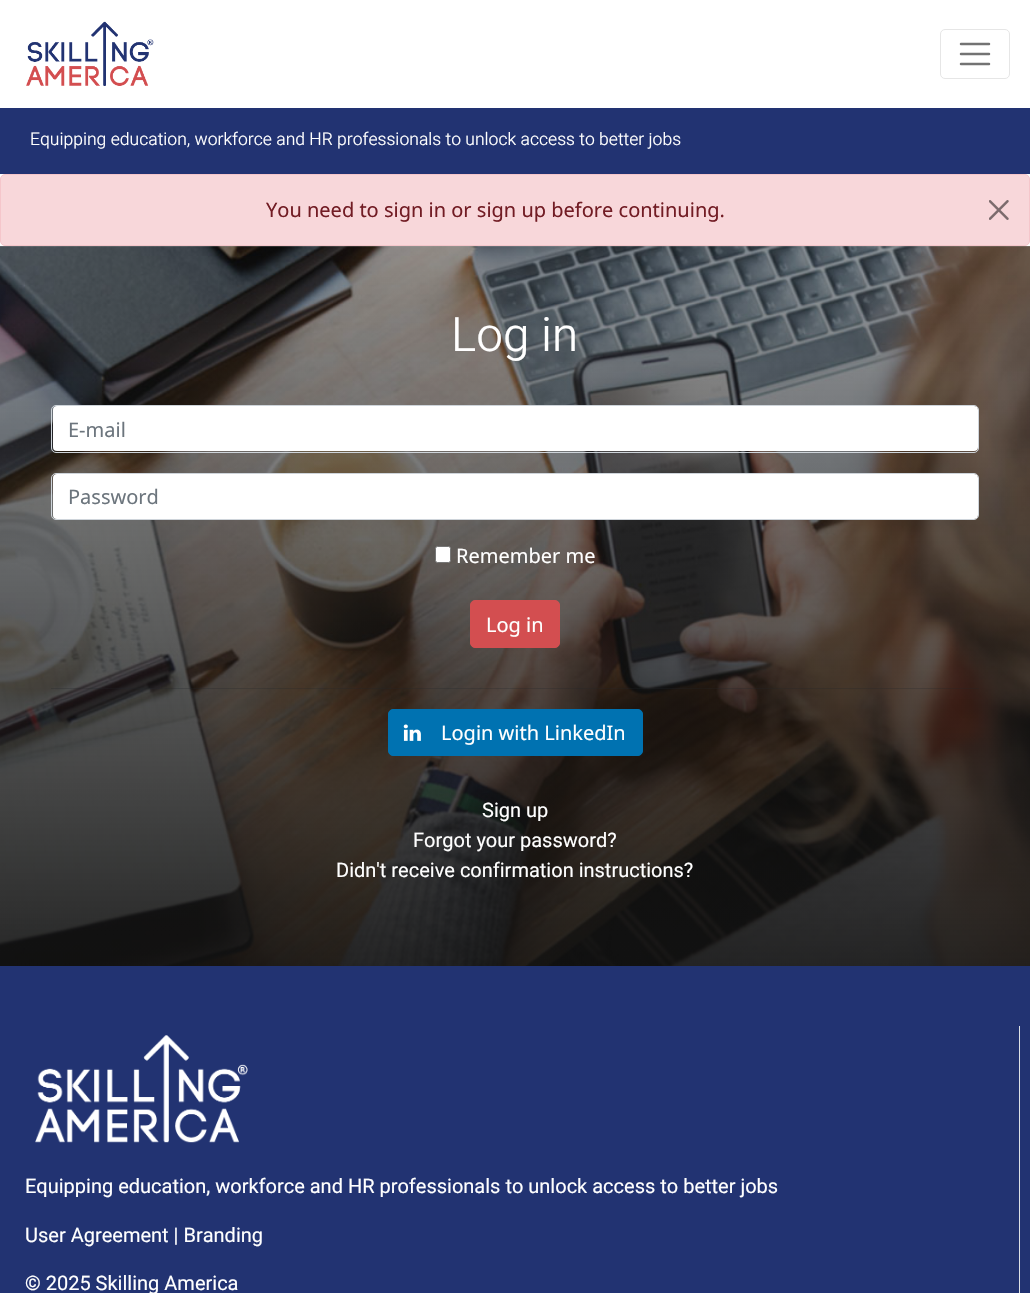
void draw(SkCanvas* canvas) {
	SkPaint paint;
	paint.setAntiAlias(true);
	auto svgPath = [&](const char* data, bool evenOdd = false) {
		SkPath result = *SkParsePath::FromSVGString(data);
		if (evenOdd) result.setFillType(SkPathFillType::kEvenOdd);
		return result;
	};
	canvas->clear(0xffffffff);
	canvas->drawImageRect(SkImages::DeferredFromEncodedData(SkData::MakeFromFileName("img1.png")), SkRect::MakeXYWH(26, 21, 128, 65), SkSamplingOptions());
	paint.setStroke(true);
	paint.setStrokeWidth(1);
	paint.setColor(0xffe6e6e6);
	canvas->drawRoundRect(SkRect::MakeXYWH(940.5, 29.5, 69, 49), 4.5, 4.5, paint);
	paint.setStrokeWidth(2.5);
	paint.setStrokeCap(SkPaint::kRound_Cap);
	paint.setColor(0xff737373);
	canvas->drawPath(svgPath("M961 44H989M961 54H989M961 64H989"), paint);
	paint.setStroke(false);
	paint.setColor(0xff223372);
	canvas->drawRect(SkRect::MakeXYWH(0, 108, 1030, 66), paint);
	SkFont f1(fontMgr->matchFamilyStyle("Heebo", SkFontStyle(300, SkFontStyle::kNormal_Width, SkFontStyle::kUpright_Slant)), 17.5);
	f1.setSubpixel(true);
	paint.setColor(0xffffffff);
	canvas->drawString("Equipping education, workforce and HR professionals to unlock access to better jobs", 30, 145, f1, paint);
	paint.setColor(0xfff8d7da);
	canvas->drawRoundRect(SkRect::MakeXYWH(0.5, 174.5, 1029, 71), 4.5, 4.5, paint);
	paint.setStroke(true);
	paint.setStrokeWidth(1);
	paint.setStrokeCap(SkPaint::kButt_Cap);
	paint.setColor(0xfff5c6cb);
	canvas->drawRoundRect(SkRect::MakeXYWH(0.5, 174.5, 1029, 71), 4.5, 4.5, paint);
	SkFont f2(fontMgr->matchFamilyStyle("Noto Sans", SkFontStyle::Normal()), 20);
	f2.setSubpixel(true);
	paint.setStroke(false);
	paint.setColor(0xff721c24);
	canvas->drawString("You need to sign in or sign up before continuing.", 266, 217, f2, paint);
	canvas->drawImageRect(SkImages::DeferredFromEncodedData(SkData::MakeFromFileName("img2.png")), SkRect::MakeXYWH(989, 200, 20, 20), SkSamplingOptions());
	canvas->drawImageRect(SkImages::DeferredFromEncodedData(SkData::MakeFromFileName("img3.png")), SkRect::MakeXYWH(0, 246, 1030, 720), SkSamplingOptions());
	SkFont f3(fontMgr->matchFamilyStyle("Heebo", SkFontStyle(300, SkFontStyle::kNormal_Width, SkFontStyle::kUpright_Slant)), 47.5);
	f3.setSubpixel(true);
	paint.setColor(0xffffffff);
	canvas->drawString("Log in", 451, 351, f3, paint);
	canvas->drawRoundRect(SkRect::MakeXYWH(53, 406, 925, 45), 4, 4, paint);
	paint.setStroke(true);
	paint.setColor(0xffced4da);
	canvas->drawRoundRect(SkRect::MakeXYWH(51.5, 405.5, 927, 47), 4.5, 4.5, paint);
	paint.setStroke(false);
	paint.setColor(0xff6c757d);
	canvas->drawString("E-mail", 68, 437, f2, paint);
	paint.setColor(0xffffffff);
	canvas->drawRoundRect(SkRect::MakeXYWH(53, 474, 925, 45), 4, 4, paint);
	paint.setStroke(true);
	paint.setColor(0xffced4da);
	canvas->drawRoundRect(SkRect::MakeXYWH(51.5, 473.5, 927, 46), 4.5, 4.5, paint);
	paint.setStroke(false);
	paint.setColor(0xff6c757d);
	canvas->drawString("Password", 68, 504, f2, paint);
	paint.setColor(0xffffffff);
	canvas->drawRoundRect(SkRect::MakeXYWH(435.5, 546.5, 15, 16), 2, 2, paint);
	paint.setStroke(true);
	paint.setColor(0xff767676);
	canvas->drawRoundRect(SkRect::MakeXYWH(435.5, 546.5, 15, 16), 2, 2, paint);
	paint.setStroke(false);
	paint.setColor(0xffffffff);
	canvas->drawString("Remember me", 456, 563, f2, paint);
	paint.setColor(0xffd34e50);
	canvas->drawRoundRect(SkRect::MakeXYWH(470.5, 600.5, 89, 47), 4.5, 4.5, paint);
	paint.setStroke(true);
	canvas->drawRoundRect(SkRect::MakeXYWH(470.5, 600.5, 89, 47), 4.5, 4.5, paint);
	paint.setStroke(false);
	paint.setColor(0xffffffff);
	canvas->drawString("Log in", 486, 632, f2, paint);
	paint.setColor(0x40212529);
	canvas->drawRect(SkRect::MakeXYWH(51, 688, 928, 1), paint);
	paint.setColor(0xff0072b1);
	canvas->drawRoundRect(SkRect::MakeXYWH(388.5, 709.5, 254, 46), 4.5, 4.5, paint);
	paint.setStroke(true);
	canvas->drawRoundRect(SkRect::MakeXYWH(388.5, 709.5, 254, 46), 4.5, 4.5, paint);
	canvas->drawImageRect(SkImages::DeferredFromEncodedData(SkData::MakeFromFileName("img4.png")), SkRect::MakeXYWH(403, 724, 18, 17), SkSamplingOptions());
	paint.setStroke(false);
	paint.setColor(0xffffffff);
	canvas->drawString("Login with LinkedIn", 441, 740, f2, paint);
	SkFont f4(fontMgr->matchFamilyStyle("Roboto", SkFontStyle::Normal()), 20);
	f4.setSubpixel(true);
	canvas->drawString("Sign up", 482, 817, f4, paint);
	canvas->drawString("Forgot your password?", 413, 847, f4, paint);
	canvas->drawString("Didn't receive confirmation instructions?", 336, 877, f4, paint);
	paint.setColor(0xff223372);
	canvas->drawRect(SkRect::MakeXYWH(0, 966, 1030, 327), paint);
	paint.setColor(0xffdee2e6);
	canvas->drawRect(SkRect::MakeXYWH(1019, 1026, 1, 267), paint);
	canvas->drawImageRect(SkImages::DeferredFromEncodedData(SkData::MakeFromFileName("img5.png")), SkRect::MakeXYWH(35, 1035, 213, 108), SkSamplingOptions());
	paint.setColor(0xffffffff);
	canvas->drawString("Equipping education, workforce and HR professionals to unlock access to better jobs", 25, 1193, f4, paint);
	canvas->drawString("User Agreement | Branding", 25, 1242, f4, paint);
	canvas->drawString("© 2025 Skilling America", 25, 1290, f4, paint);
}
